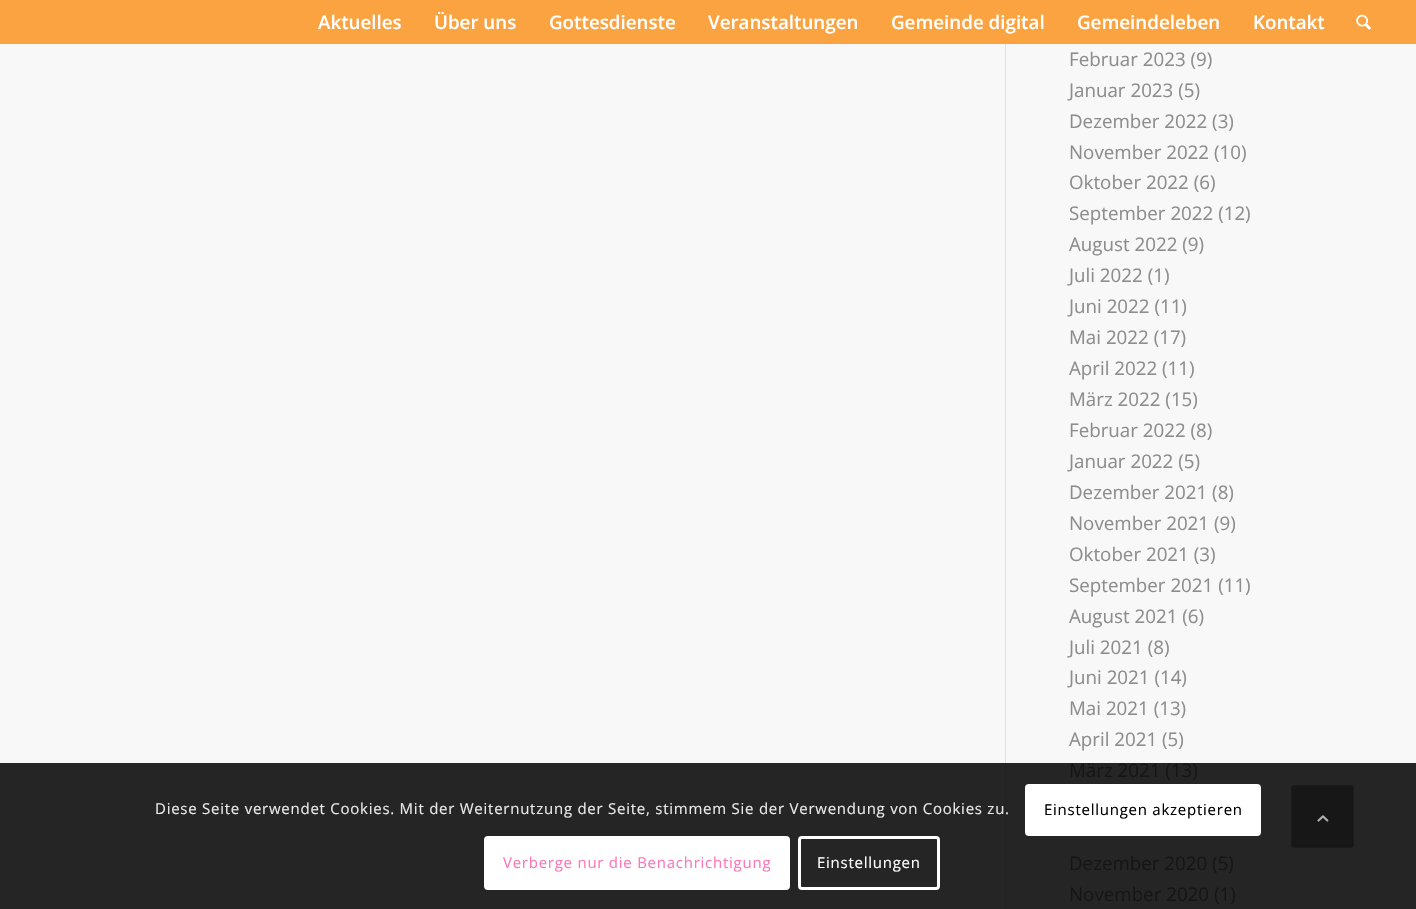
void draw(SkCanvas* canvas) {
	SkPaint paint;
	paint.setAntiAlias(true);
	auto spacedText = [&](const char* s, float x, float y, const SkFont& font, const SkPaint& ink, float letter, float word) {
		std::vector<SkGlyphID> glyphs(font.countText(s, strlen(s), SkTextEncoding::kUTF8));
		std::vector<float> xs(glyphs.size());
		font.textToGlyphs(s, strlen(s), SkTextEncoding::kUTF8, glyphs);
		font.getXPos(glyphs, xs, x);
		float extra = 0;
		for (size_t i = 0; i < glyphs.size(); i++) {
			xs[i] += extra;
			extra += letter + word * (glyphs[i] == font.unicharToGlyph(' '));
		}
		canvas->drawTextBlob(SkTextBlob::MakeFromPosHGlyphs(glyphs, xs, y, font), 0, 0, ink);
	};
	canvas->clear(0xfff8f8f8);
	paint.setColor(0xfffaa340);
	canvas->drawRect(SkRect::MakeXYWH(0, 0, 1416, 44), paint);
	SkFont f1(fontMgr->matchFamilyStyle("Open Sans", SkFontStyle(600, SkFontStyle::kNormal_Width, SkFontStyle::kUpright_Slant)), 18.75);
	f1.setSubpixel(true);
	paint.setColor(0xffffffff);
	canvas->drawString("Aktuelles", 318, 29, f1, paint);
	canvas->drawString("Über uns", 434, 29, f1, paint);
	canvas->drawString("Gottesdienste", 549, 29, f1, paint);
	canvas->drawString("Veranstaltungen", 708, 29, f1, paint);
	canvas->drawString("Gemeinde digital", 891, 29, f1, paint);
	canvas->drawString("Gemeindeleben", 1077, 29, f1, paint);
	canvas->drawString("Kontakt", 1253, 29, f1, paint);
	canvas->drawImageRect(SkImages::DeferredFromEncodedData(SkData::MakeFromFileName("img1.png")), SkRect::MakeXYWH(1356, 14, 15, 16), SkSamplingOptions());
	paint.setColor(0xff252525);
	canvas->drawRect(SkRect::MakeXYWH(0, 763, 1416, 146), paint);
	paint.setColor(0xffe1e1e1);
	canvas->drawRect(SkRect::MakeXYWH(1005, 44, 1, 719), paint);
	paint.setColor(0xff222222);
	canvas->drawRect(SkRect::MakeXYWH(1005, 763, 1, 146), paint);
	SkFont f2(fontMgr->matchFamilyStyle("Open Sans", SkFontStyle::Normal()), 18.75);
	f2.setSubpixel(true);
	paint.setColor(0xff8d8d8d);
	canvas->drawString("Februar 2023 (9)", 1069, 66, f2, paint);
	canvas->drawString("Januar 2023 (5)", 1069, 97, f2, paint);
	canvas->drawString("Dezember 2022 (3)", 1069, 128, f2, paint);
	canvas->drawString("November 2022 (10)", 1069, 159, f2, paint);
	canvas->drawString("Oktober 2022 (6)", 1069, 189, f2, paint);
	canvas->drawString("September 2022 (12)", 1069, 220, f2, paint);
	canvas->drawString("August 2022 (9)", 1069, 251, f2, paint);
	canvas->drawString("Juli 2022 (1)", 1069, 282, f2, paint);
	canvas->drawString("Juni 2022 (11)", 1069, 313, f2, paint);
	canvas->drawString("Mai 2022 (17)", 1069, 344, f2, paint);
	canvas->drawString("April 2022 (11)", 1069, 375, f2, paint);
	canvas->drawString("März 2022 (15)", 1069, 406, f2, paint);
	canvas->drawString("Februar 2022 (8)", 1069, 437, f2, paint);
	canvas->drawString("Januar 2022 (5)", 1069, 468, f2, paint);
	canvas->drawString("Dezember 2021 (8)", 1069, 499, f2, paint);
	canvas->drawString("November 2021 (9)", 1069, 530, f2, paint);
	canvas->drawString("Oktober 2021 (3)", 1069, 561, f2, paint);
	canvas->drawString("September 2021 (11)", 1069, 592, f2, paint);
	canvas->drawString("August 2021 (6)", 1069, 623, f2, paint);
	canvas->drawString("Juli 2021 (8)", 1069, 654, f2, paint);
	canvas->drawString("Juni 2021 (14)", 1069, 684, f2, paint);
	canvas->drawString("Mai 2021 (13)", 1069, 715, f2, paint);
	canvas->drawString("April 2021 (5)", 1069, 746, f2, paint);
	paint.setColor(0xff151515);
	canvas->drawString("März 2021 (13)", 1069, 777, f2, paint);
	canvas->drawString("Dezember 2020 (5)", 1069, 870, f2, paint);
	canvas->drawString("November 2020 (1)", 1069, 901, f2, paint);
	SkFont f3(fontMgr->matchFamilyStyle("Open Sans", SkFontStyle::Normal()), 15);
	f3.setSubpixel(true);
	paint.setColor(0xffe9e9e9);
	spacedText("Diese Seite verwendet Cookies. Mit der Weiternutzung der Seite, stimmem Sie der Verwendung von Cookies zu.", 155, 814, f3, paint, 0.75, 0);
	paint.setColor(0xffffffff);
	canvas->drawRoundRect(SkRect::MakeXYWH(1025, 784, 236, 52), 4, 4, paint);
	paint.setColor(0xff000000);
	spacedText("Einstellungen akzeptieren", 1044, 815, f3, paint, 0.75, 0);
	paint.setColor(0xffffffff);
	canvas->drawRoundRect(SkRect::MakeXYWH(485.5, 837.5, 303, 51), 2.5, 2.5, paint);
	paint.setStroke(true);
	paint.setStrokeWidth(3);
	canvas->drawRoundRect(SkRect::MakeXYWH(485.5, 837.5, 303, 51), 2.5, 2.5, paint);
	paint.setStroke(false);
	paint.setColor(0xffff75b5);
	spacedText("Verberge nur die Benachrichtigung", 503, 868, f3, paint, 0.75, 0);
	paint.setStroke(true);
	paint.setColor(0xffffffff);
	canvas->drawRoundRect(SkRect::MakeXYWH(799.5, 837.5, 139, 51), 2.5, 2.5, paint);
	paint.setStroke(false);
	spacedText("Einstellungen", 817, 868, f3, paint, 0.75, 0);
	paint.setColor(0xff171717);
	canvas->drawRoundRect(SkRect::MakeXYWH(1291.5, 785.5, 62, 62), 2, 2, paint);
	paint.setStroke(true);
	paint.setStrokeWidth(1);
	paint.setColor(0xff1b1b1b);
	canvas->drawRoundRect(SkRect::MakeXYWH(1291.5, 785.5, 62, 62), 2, 2, paint);
	canvas->drawImageRect(SkImages::DeferredFromEncodedData(SkData::MakeFromFileName("img2.png")), SkRect::MakeXYWH(1317, 815, 12, 7), SkSamplingOptions());
}
